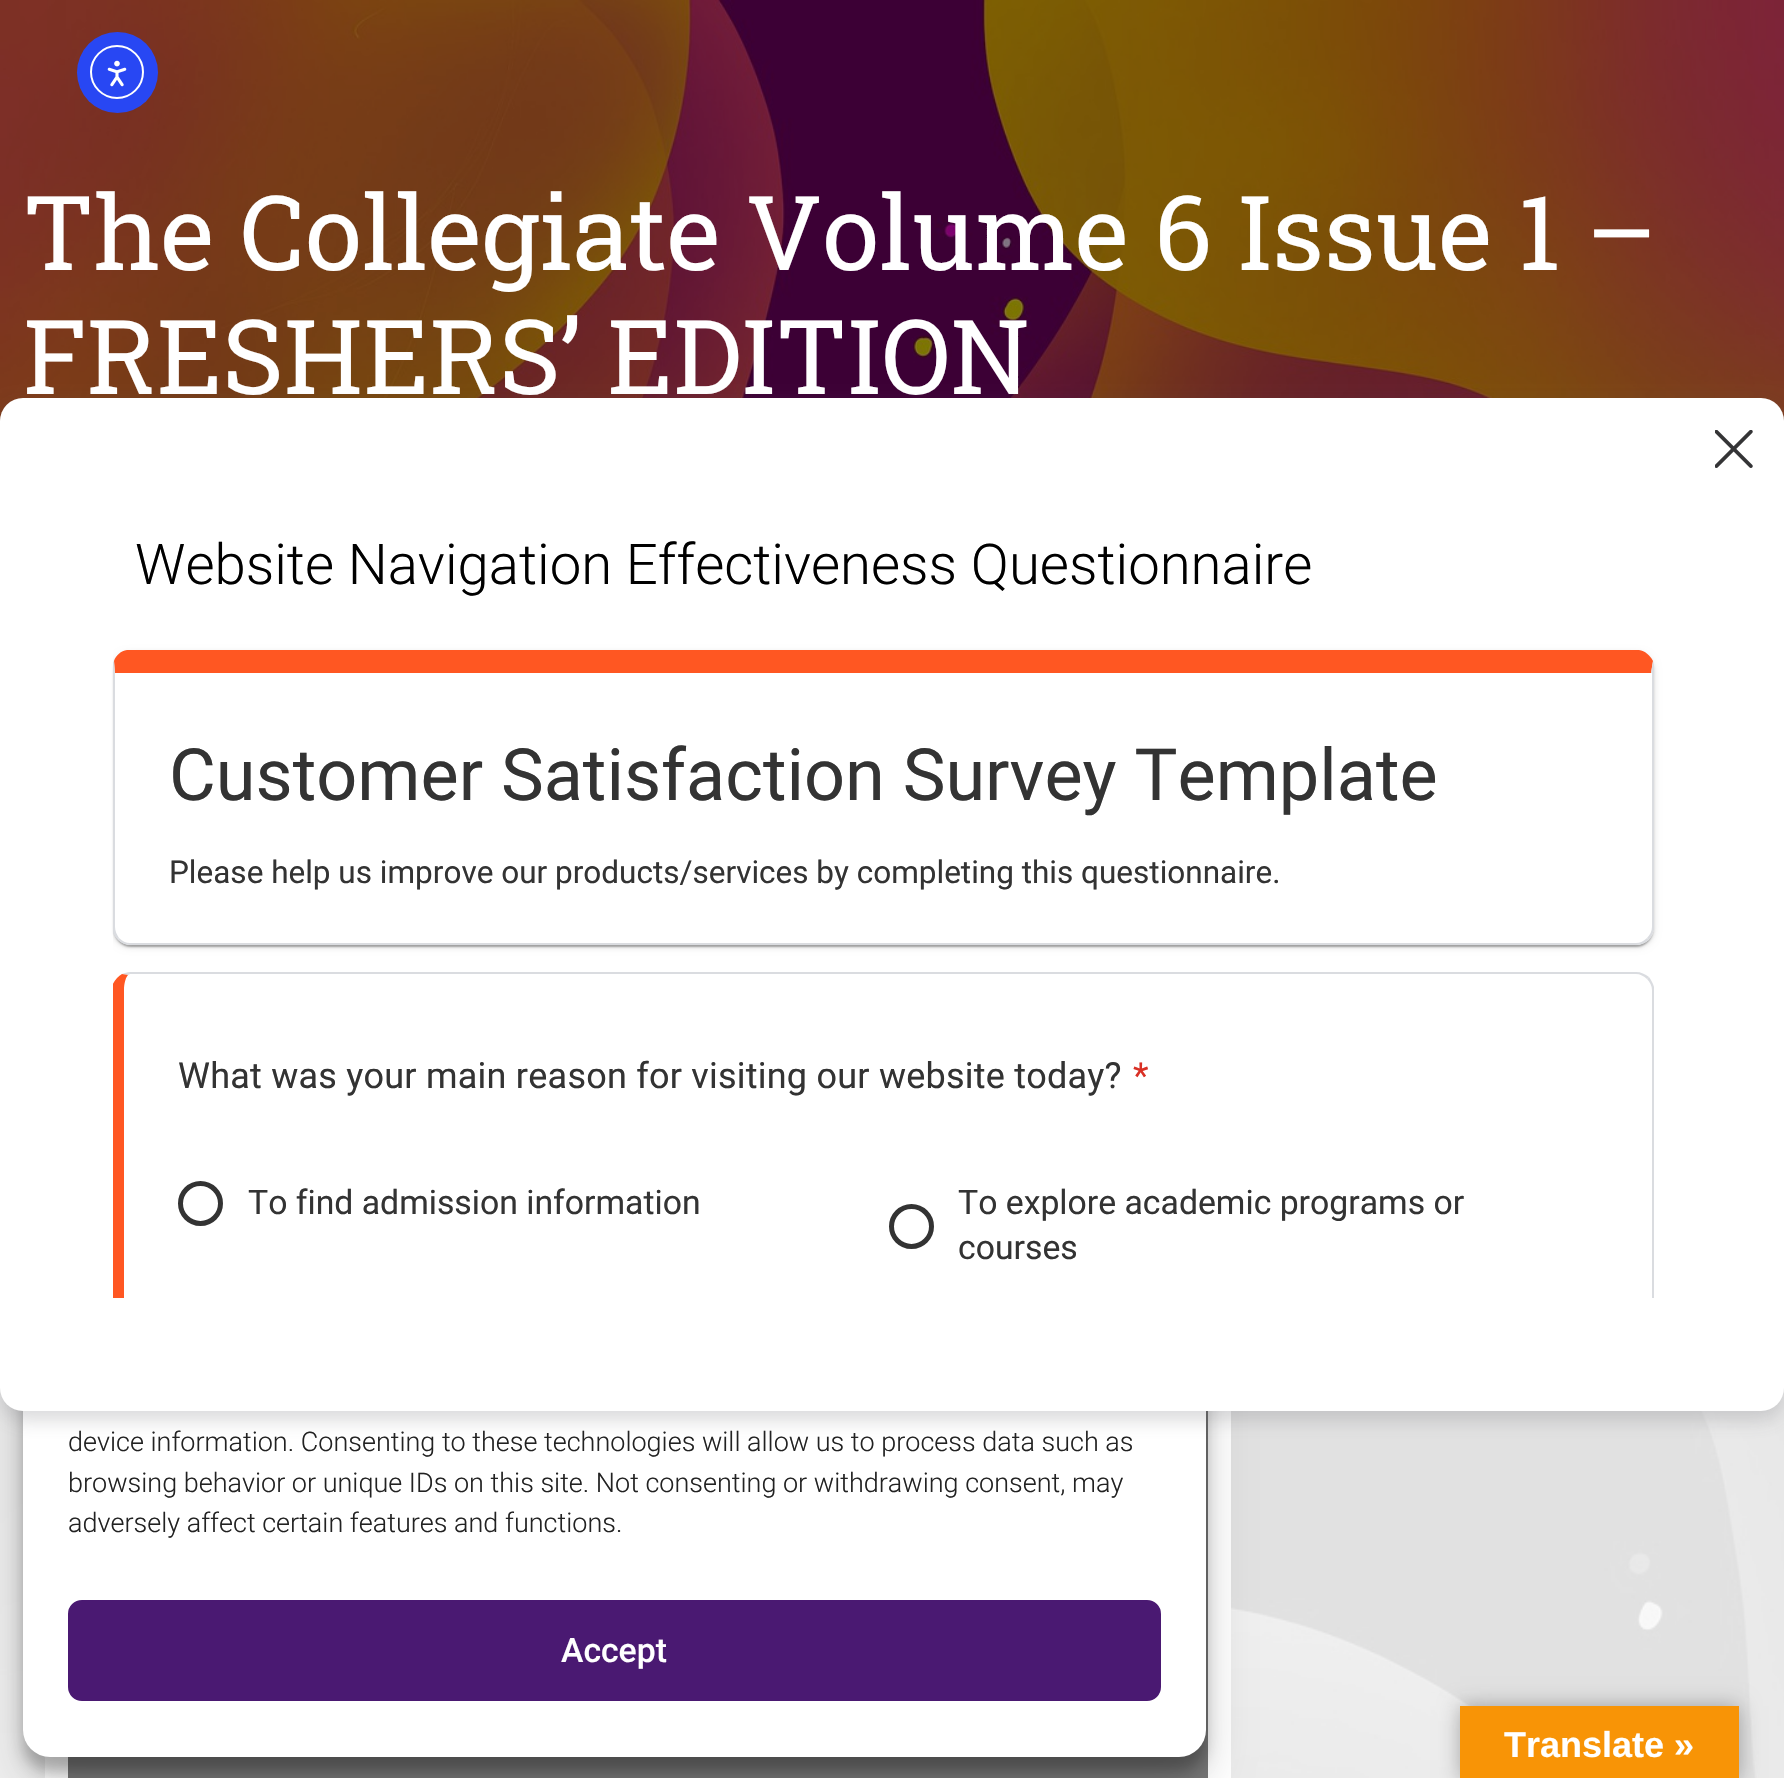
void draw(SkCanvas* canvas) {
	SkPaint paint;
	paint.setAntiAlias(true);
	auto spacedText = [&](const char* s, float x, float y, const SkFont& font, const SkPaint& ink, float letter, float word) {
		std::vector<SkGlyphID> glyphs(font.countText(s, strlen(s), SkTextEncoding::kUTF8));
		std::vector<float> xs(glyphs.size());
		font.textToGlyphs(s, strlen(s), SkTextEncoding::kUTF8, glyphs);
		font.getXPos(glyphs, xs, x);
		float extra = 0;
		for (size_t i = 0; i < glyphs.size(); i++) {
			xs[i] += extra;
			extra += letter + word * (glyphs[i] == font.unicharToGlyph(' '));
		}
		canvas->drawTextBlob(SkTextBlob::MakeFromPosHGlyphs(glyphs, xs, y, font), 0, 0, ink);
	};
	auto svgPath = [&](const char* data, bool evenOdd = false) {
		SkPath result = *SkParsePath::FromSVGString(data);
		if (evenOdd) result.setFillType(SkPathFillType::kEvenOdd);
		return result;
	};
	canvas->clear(0xffffffff);
	canvas->drawImageRect(SkImages::DeferredFromEncodedData(SkData::MakeFromFileName("img1.png")), SkRect::MakeXYWH(0, 1388, 1784, 390), SkSamplingOptions());
	canvas->drawImageRect(SkImages::DeferredFromEncodedData(SkData::MakeFromFileName("img3.png")), SkRect::MakeXYWH(0, 0, 1784, 421), SkSamplingOptions());
	paint.setColor(0xff2847f3);
	canvas->drawCircle(117.5, 72.5, 40.5, paint);
	paint.setStroke(true);
	paint.setStrokeWidth(2);
	paint.setColor(0xffffffff);
	canvas->drawCircle(117, 72, 26, paint);
	canvas->drawImageRect(SkImages::DeferredFromEncodedData(SkData::MakeFromFileName("img2.png")), SkRect::MakeXYWH(107, 60, 20, 27), SkSamplingOptions());
	SkFont f1(fontMgr->matchFamilyStyle("Roboto Slab", SkFontStyle::Normal()), 103.5);
	f1.setSubpixel(true);
	paint.setStroke(false);
	canvas->drawString("The Collegiate Volume 6 Issue 1 –", 23, 270, f1, paint);
	canvas->drawString("FRESHERS’ EDITION", 23, 394, f1, paint);
	canvas->drawRect(SkRect::MakeXYWH(45, 1411, 1186, 367), paint);
	paint.setColor(0xff777777);
	canvas->drawRect(SkRect::MakeXYWH(68, 1411, 1140, 367), paint);
	paint.setColor(0x3b000000);
	paint.setMaskFilter(SkMaskFilter::MakeBlur(kNormal_SkBlurStyle, 7));
	canvas->drawRoundRect(SkRect::MakeXYWH(23, 1226, 1183, 545), 27, 27, paint);
	paint.setMaskFilter(nullptr);
	paint.setColor(0x30000000);
	paint.setMaskFilter(SkMaskFilter::MakeBlur(kNormal_SkBlurStyle, 22.5));
	canvas->drawRoundRect(SkRect::MakeXYWH(23, 1235, 1183, 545), 27, 27, paint);
	paint.setMaskFilter(nullptr);
	paint.setColor(0xffffffff);
	canvas->drawRoundRect(SkRect::MakeXYWH(23, 1213, 1183, 544), 27, 27, paint);
	paint.setColor(0x3d606167);
	paint.setMaskFilter(SkMaskFilter::MakeBlur(kNormal_SkBlurStyle, 9.5));
	canvas->drawRoundRect(SkRect::MakeXYWH(0, 407, 1784, 1013), 23, 23, paint);
	paint.setMaskFilter(nullptr);
	paint.setColor(0xffffffff);
	canvas->drawRoundRect(SkRect::MakeXYWH(0, 398, 1784, 1013), 23, 23, paint);
	canvas->drawImageRect(SkImages::DeferredFromEncodedData(SkData::MakeFromFileName("img4.png")), SkRect::MakeXYWH(1715, 430, 38, 38), SkSamplingOptions());
	SkFont f2(fontMgr->matchFamilyStyle("Roboto", SkFontStyle(300, SkFontStyle::kNormal_Width, SkFontStyle::kUpright_Slant)), 56.25);
	f2.setSubpixel(true);
	paint.setColor(0xff000000);
	canvas->drawString("Website Navigation Effectiveness Questionnaire", 135, 584, f2, paint);
	canvas->save();
	canvas->clipRect(SkRect::MakeXYWH(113, 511, 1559, 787));
	canvas->clipPath(svgPath("M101 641H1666V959H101ZM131 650H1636C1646 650 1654 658 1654 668V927C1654 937 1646 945 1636 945H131C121 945 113 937 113 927V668C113 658 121 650 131 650Z", true), true);
	paint.setColor(0x1f000000);
	paint.setMaskFilter(SkMaskFilter::MakeBlur(kNormal_SkBlurStyle, 3.5));
	canvas->drawRoundRect(SkRect::MakeXYWH(113, 653, 1541, 294), 18, 18, paint);
	paint.setMaskFilter(nullptr);
	canvas->restore();
	canvas->save();
	canvas->clipPath(svgPath("M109 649H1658V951H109ZM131 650H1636C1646 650 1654 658 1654 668V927C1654 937 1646 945 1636 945H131C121 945 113 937 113 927V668C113 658 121 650 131 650Z", true), true);
	paint.setColor(0x24000000);
	paint.setMaskFilter(SkMaskFilter::MakeBlur(kNormal_SkBlurStyle, 1));
	canvas->drawRoundRect(SkRect::MakeXYWH(113, 653, 1541, 294), 18, 18, paint);
	paint.setMaskFilter(nullptr);
	canvas->restore();
	canvas->save();
	canvas->clipPath(svgPath("M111 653H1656V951H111ZM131 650H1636C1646 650 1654 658 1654 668V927C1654 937 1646 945 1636 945H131C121 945 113 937 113 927V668C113 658 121 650 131 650Z", true), true);
	paint.setColor(0x33000000);
	paint.setMaskFilter(SkMaskFilter::MakeBlur(kNormal_SkBlurStyle, 1));
	canvas->drawRoundRect(SkRect::MakeXYWH(115, 657, 1537, 290), 16, 16, paint);
	paint.setMaskFilter(nullptr);
	canvas->restore();
	paint.setColor(0xffff5722);
	canvas->drawPath(svgPath("M114 661C116 655 121 651 127 650H1639C1645 651 1650 655 1653 661L1651 673H115V675Z"), paint);
	paint.setColor(0xffdadce0);
	canvas->drawPath(svgPath("M1654 930C1653 934 1651 937 1649 940L1647 938C1650 935 1652 931 1652 927V673H1651L1653 661L1654 665Z"), paint);
	canvas->drawPath(svgPath("M130 945H1636C1641 945 1645 943 1649 940L1647 938C1644 941 1640 943 1636 943H130C126 943 122 941 119 938L118 940C121 943 126 945 130 945Z"), paint);
	canvas->save();
	canvas->clipRect(SkRect::MakeXYWH(113, 511, 1559, 787));
	canvas->drawPath(svgPath("M112 664L114 661L115 675V927C115 931 117 935 119 938L118 940C115 937 113 934 112 931Z"), paint);
	canvas->restore();
	SkFont f3(fontMgr->matchFamilyStyle("Roboto", SkFontStyle::Normal()), 72);
	f3.setSubpixel(true);
	paint.setColor(0xff333333);
	canvas->drawString("Customer Satisfaction Survey Template", 169, 800, f3, paint);
	SkFont f4(fontMgr->matchFamilyStyle("Roboto", SkFontStyle::Normal()), 31.5);
	f4.setSubpixel(true);
	canvas->drawString("Please help us improve our products/services by completing this questionnaire.", 169, 883, f4, paint);
	paint.setColor(0xffdadce0);
	canvas->drawPath(svgPath("M130 972C127 972 125 973 122 974L128 975L130 974H1636C1640 974 1644 976 1647 979L1649 977C1645 974 1641 972 1636 972Z"), paint);
	canvas->save();
	canvas->clipRect(SkRect::MakeXYWH(113, 511, 1559, 787));
	canvas->drawPath(svgPath("M1654 1569C1653 1573 1651 1576 1649 1579L1647 1577C1650 1574 1652 1570 1652 1566V990C1652 986 1650 982 1647 979L1649 977C1651 980 1653 983 1654 987Z"), paint);
	paint.setColor(0xffff5722);
	canvas->drawPath(svgPath("M112 986C114 981 118 976 122 974L128 975C126 977 124 983 124 990V1566C124 1573 126 1579 128 1581L122 1582C118 1580 114 1575 112 1570Z"), paint);
	canvas->restore();
	SkFont f5(fontMgr->matchFamilyStyle("Roboto", SkFontStyle::Normal()), 36);
	f5.setSubpixel(true);
	paint.setColor(0xff333333);
	spacedText("What was your main reason for visiting our website today?", 178, 1088, f5, paint, 0.23, 0);
	paint.setColor(0xffd93025);
	spacedText("*", 1133, 1088, f5, paint, 0.23, 0);
	paint.setStroke(true);
	paint.setStrokeWidth(5);
	paint.setColor(0xff333333);
	canvas->drawCircle(200.5, 1203.5, 20, paint);
	SkFont f6(fontMgr->matchFamilyStyle("Roboto", SkFontStyle::Normal()), 33.75);
	f6.setSubpixel(true);
	paint.setStroke(false);
	canvas->drawString("To find admission information", 248, 1214, f6, paint);
	paint.setStroke(true);
	canvas->drawCircle(911.5, 1226.5, 20, paint);
	paint.setStroke(false);
	canvas->drawString("To explore academic programs or", 958, 1214, f6, paint);
	canvas->drawString("courses", 958, 1259, f6, paint);
	SkFont f7(fontMgr->matchFamilyStyle("Roboto", SkFontStyle(300, SkFontStyle::kNormal_Width, SkFontStyle::kUpright_Slant)), 27);
	f7.setSubpixel(true);
	paint.setColor(0xff222222);
	canvas->drawString("device information. Consenting to these technologies will allow us to process data such as", 68, 1451, f7, paint);
	canvas->drawString("browsing behavior or unique IDs on this site. Not consenting or withdrawing consent, may", 68, 1492, f7, paint);
	canvas->drawString("adversely affect certain features and functions.", 68, 1532, f7, paint);
	paint.setColor(0xff4a1972);
	canvas->drawRoundRect(SkRect::MakeXYWH(69, 1601, 1091, 99), 13, 13, paint);
	paint.setStroke(true);
	paint.setStrokeWidth(2);
	canvas->drawRoundRect(SkRect::MakeXYWH(69, 1601, 1091, 99), 13, 13, paint);
	SkFont f8(fontMgr->matchFamilyStyle("Roboto", SkFontStyle(500, SkFontStyle::kNormal_Width, SkFontStyle::kUpright_Slant)), 33.75);
	f8.setSubpixel(true);
	paint.setStroke(false);
	paint.setColor(0xffffffff);
	canvas->drawString("Accept", 561, 1662, f8, paint);
	paint.setColor(0x4d000000);
	paint.setMaskFilter(SkMaskFilter::MakeBlur(kNormal_SkBlurStyle, 10));
	canvas->drawRect(SkRect::MakeXYWH(1460, 1706, 279, 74), paint);
	paint.setMaskFilter(nullptr);
	paint.setColor(0xfff89406);
	canvas->drawRect(SkRect::MakeXYWH(1460, 1706, 279, 72), paint);
	SkFont f9(fontMgr->matchFamilyStyle("Liberation Sans", SkFontStyle::Bold()), 36);
	f9.setSubpixel(true);
	paint.setColor(0xffffffff);
	canvas->drawString("Translate »", 1504, 1757, f9, paint);
}
